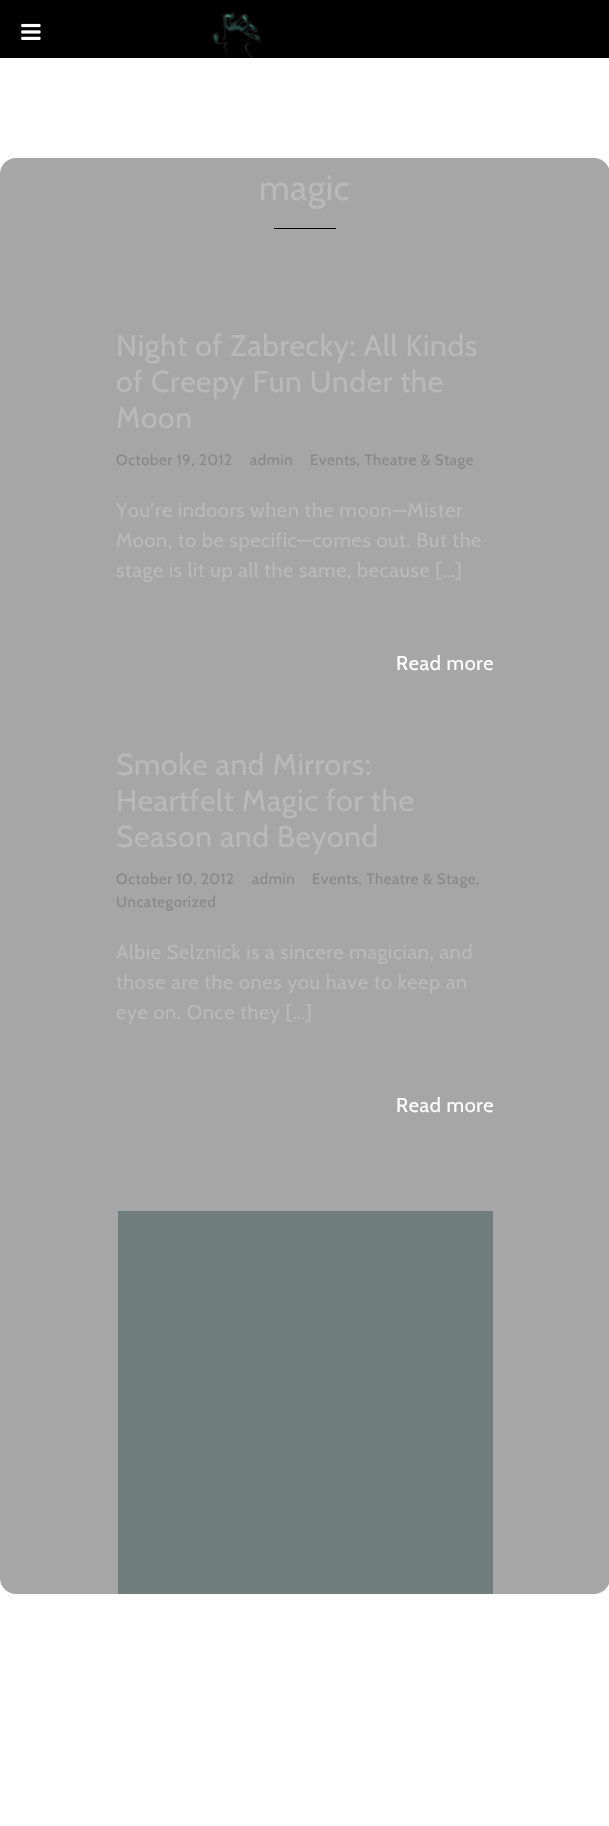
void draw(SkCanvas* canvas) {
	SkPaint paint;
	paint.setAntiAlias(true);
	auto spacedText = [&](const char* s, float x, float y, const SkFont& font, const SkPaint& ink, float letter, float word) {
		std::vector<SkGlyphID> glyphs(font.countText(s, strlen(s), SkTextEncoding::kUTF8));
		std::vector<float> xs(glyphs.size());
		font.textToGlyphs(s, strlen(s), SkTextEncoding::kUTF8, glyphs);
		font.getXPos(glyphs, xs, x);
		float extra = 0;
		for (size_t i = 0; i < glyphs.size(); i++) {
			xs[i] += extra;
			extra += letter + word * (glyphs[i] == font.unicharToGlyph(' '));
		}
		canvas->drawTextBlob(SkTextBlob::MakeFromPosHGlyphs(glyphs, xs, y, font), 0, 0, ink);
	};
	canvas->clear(0xffffffff);
	paint.setColor(0xff000000);
	canvas->drawRect(SkRect::MakeXYWH(0, 0, 609, 58), paint);
	canvas->drawImageRect(SkImages::DeferredFromEncodedData(SkData::MakeFromFileName("img1.png")), SkRect::MakeXYWH(21, 23, 20, 17), SkSamplingOptions());
	canvas->drawImageRect(SkImages::DeferredFromEncodedData(SkData::MakeFromFileName("img2.png")), SkRect::MakeXYWH(212, 12, 50, 46), SkSamplingOptions());
	paint.setColor(0xffa6a6a6);
	canvas->drawRoundRect(SkRect::MakeXYWH(0, 158, 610, 1436), 16, 16, paint);
	SkFont f1(fontMgr->matchFamilyStyle("Cabin", SkFontStyle::Normal()), 35);
	f1.setSubpixel(true);
	paint.setColor(0xffb9b9b9);
	spacedText("magic", 259, 200, f1, paint, 0.6, 0);
	paint.setColor(0xff000000);
	canvas->drawRect(SkRect::MakeXYWH(274, 228, 62, 1), paint);
	SkFont f2(fontMgr->matchFamilyStyle("Cabin", SkFontStyle::Normal()), 30);
	f2.setSubpixel(true);
	paint.setColor(0xffb9b9b9);
	spacedText("Night of Zabrecky: All Kinds", 116, 356, f2, paint, 0.6, 0);
	spacedText("of Creepy Fun Under the", 116, 392, f2, paint, 0.6, 0);
	spacedText("Moon", 116, 428, f2, paint, 0.6, 0);
	SkFont f3(fontMgr->matchFamilyStyle("Cabin", SkFontStyle::Normal()), 15);
	f3.setSubpixel(true);
	paint.setColor(0xff888888);
	spacedText("October 19, 2012", 116, 465, f3, paint, 0.6, 0);
	spacedText("admin", 250, 465, f3, paint, 0.6, 0);
	spacedText("Events, Theatre & Stage", 310, 465, f3, paint, 0.6, 0);
	SkFont f4(fontMgr->matchFamilyStyle("Cabin", SkFontStyle::Normal()), 20);
	f4.setSubpixel(true);
	paint.setColor(0xffb9b9b9);
	spacedText("You’re indoors when the moon—Mister", 116, 517, f4, paint, 0.6, 0);
	spacedText("Moon, to be specific—comes out. But the", 116, 547, f4, paint, 0.6, 0);
	spacedText("stage is lit up all the same, because […]", 116, 577, f4, paint, 0.6, 0);
	paint.setColor(0xffffffff);
	spacedText("Read more", 396, 670, f4, paint, 0.6, 0);
	paint.setColor(0xffb9b9b9);
	spacedText("Smoke and Mirrors:", 116, 775, f2, paint, 0.6, 0);
	spacedText("Heartfelt Magic for the", 116, 811, f2, paint, 0.6, 0);
	spacedText("Season and Beyond", 116, 847, f2, paint, 0.6, 0);
	paint.setColor(0xff888888);
	spacedText("October 10, 2012", 116, 884, f3, paint, 0.6, 0);
	spacedText("admin", 252, 884, f3, paint, 0.6, 0);
	spacedText("Events, Theatre & Stage,", 312, 884, f3, paint, 0.6, 0);
	spacedText("Uncategorized", 116, 907, f3, paint, 0.6, 0);
	paint.setColor(0xffb9b9b9);
	spacedText("Albie Selznick is a sincere magician, and", 116, 959, f4, paint, 0.6, 0);
	spacedText("those are the ones you have to keep an", 116, 989, f4, paint, 0.6, 0);
	spacedText("eye on. Once they […]", 116, 1019, f4, paint, 0.6, 0);
	paint.setColor(0xffffffff);
	spacedText("Read more", 396, 1112, f4, paint, 0.6, 0);
	paint.setColor(0xff707e7b);
	canvas->drawRect(SkRect::MakeXYWH(118, 1211, 375, 383), paint);
}
